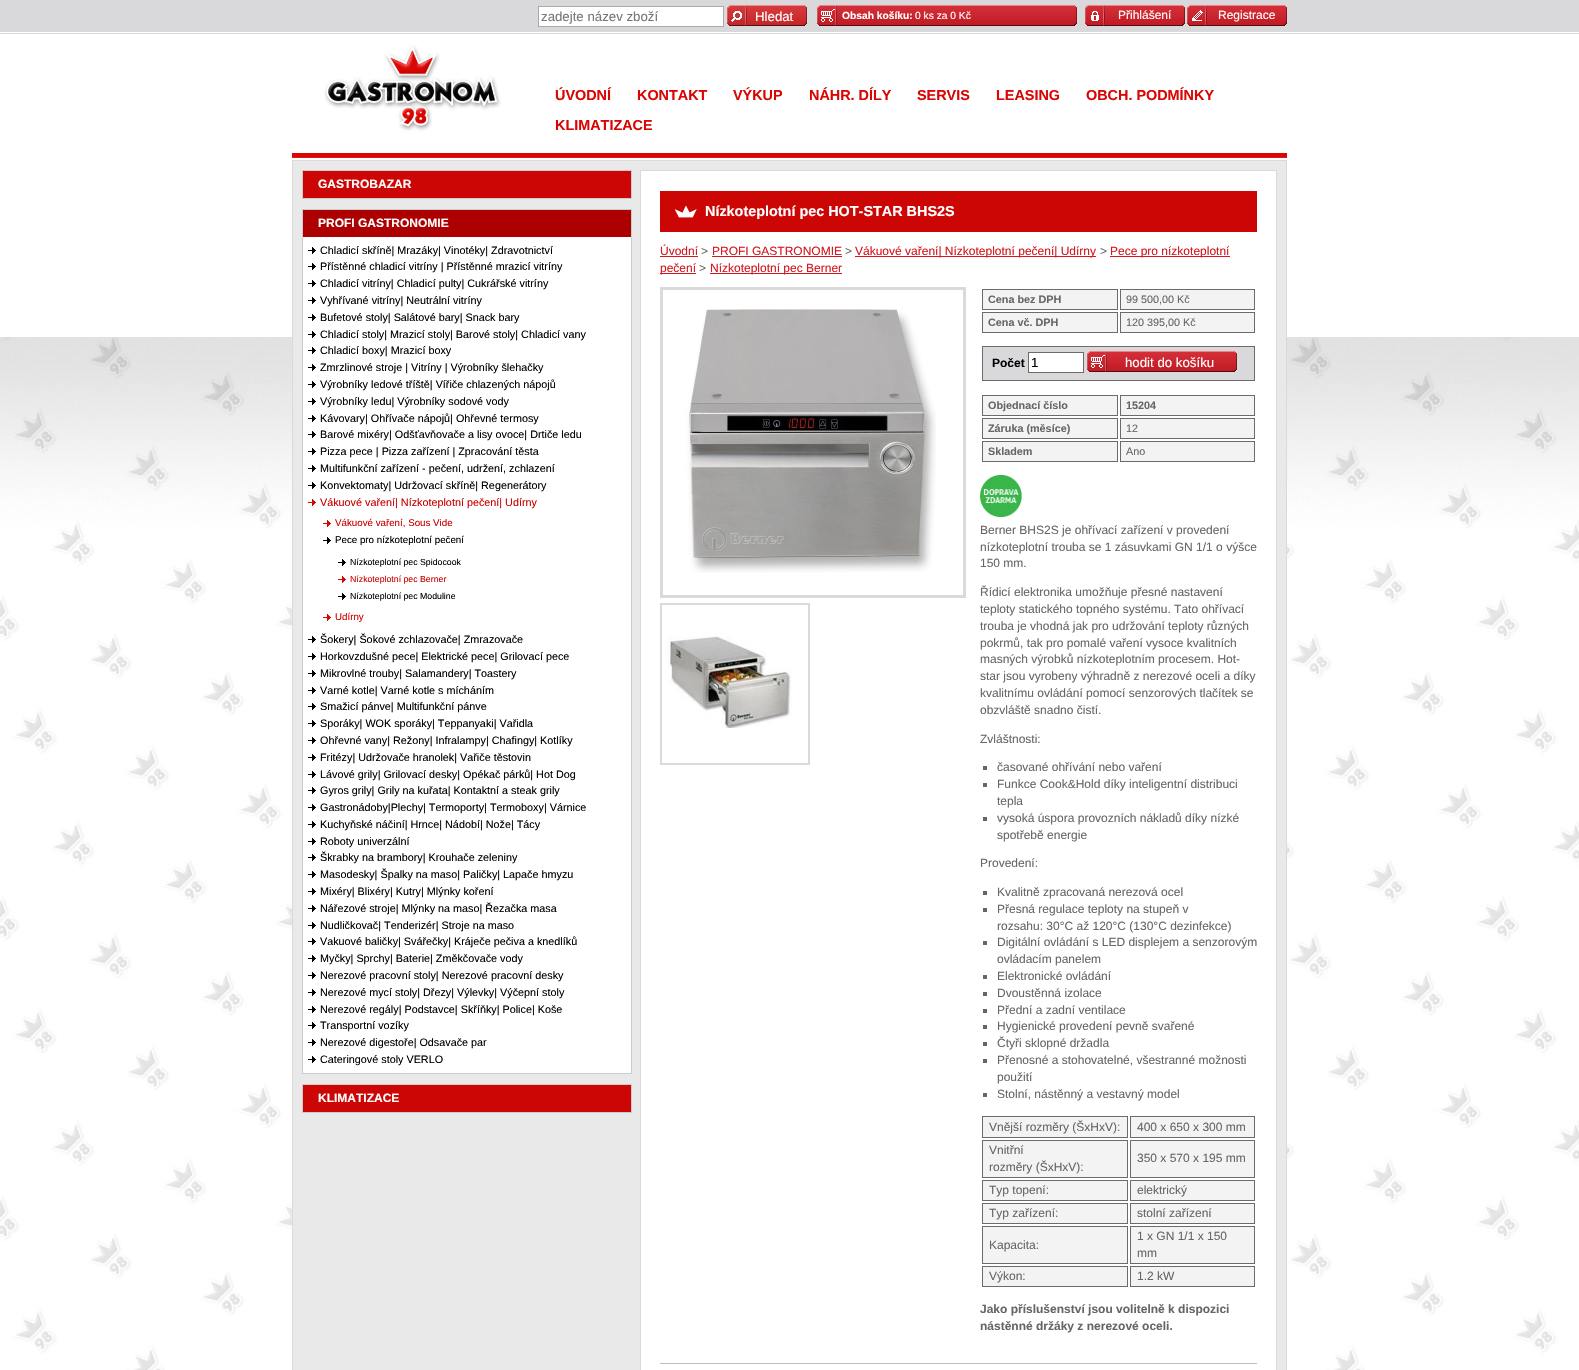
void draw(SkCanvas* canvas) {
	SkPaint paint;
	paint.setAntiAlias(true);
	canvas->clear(0xffffffff);
	canvas->drawImageRect(SkImages::DeferredFromEncodedData(SkData::MakeFromFileName("img1.png")), SkRect::MakeXYWH(0, 600, 1579, 770), SkSamplingOptions());
	canvas->drawImageRect(SkImages::DeferredFromEncodedData(SkData::MakeFromFileName("img2.png")), SkRect::MakeXYWH(0, 0, 1579, 600), SkSamplingOptions());
	canvas->drawImageRect(SkImages::DeferredFromEncodedData(SkData::MakeFromFileName("img3.png")), SkRect::MakeXYWH(292, 153, 995, 17), SkSamplingOptions());
	paint.setColor(0xffffffff);
	canvas->drawRect(SkRect::MakeXYWH(538.5, 6.5, 185, 20), paint);
	paint.setStroke(true);
	paint.setStrokeWidth(1);
	paint.setColor(0xffaaaaaa);
	canvas->drawRect(SkRect::MakeXYWH(538.5, 6.5, 185, 20), paint);
	SkFont f1(fontMgr->matchFamilyStyle("Liberation Sans", SkFontStyle::Normal()), 13.25);
	f1.setSubpixel(true);
	paint.setStroke(false);
	paint.setColor(0xff777777);
	canvas->drawString("zadejte název zboží", 541, 21, f1, paint);
	canvas->drawImageRect(SkImages::DeferredFromEncodedData(SkData::MakeFromFileName("img4.png")), SkRect::MakeXYWH(727, 5, 80, 21), SkSamplingOptions());
	paint.setColor(0xffffffff);
	canvas->drawString("Hledat", 755, 21, f1, paint);
	canvas->drawImageRect(SkImages::DeferredFromEncodedData(SkData::MakeFromFileName("img5.png")), SkRect::MakeXYWH(817, 5, 260, 21), SkSamplingOptions());
	SkFont f2(fontMgr->matchFamilyStyle("Liberation Sans", SkFontStyle::Bold()), 10.25);
	f2.setSubpixel(true);
	canvas->drawString("Obsah košíku:", 842, 19, f2, paint);
	SkFont f3(fontMgr->matchFamilyStyle("Liberation Sans", SkFontStyle::Normal()), 10.25);
	f3.setSubpixel(true);
	canvas->drawString("0 ks za 0 Kč", 915, 19, f3, paint);
	canvas->drawImageRect(SkImages::DeferredFromEncodedData(SkData::MakeFromFileName("img6.png")), SkRect::MakeXYWH(1085, 5, 100, 21), SkSamplingOptions());
	SkFont f4(fontMgr->matchFamilyStyle("Liberation Sans", SkFontStyle::Normal()), 12);
	f4.setSubpixel(true);
	canvas->drawString("Přihlášení", 1118, 19, f4, paint);
	canvas->drawImageRect(SkImages::DeferredFromEncodedData(SkData::MakeFromFileName("img7.png")), SkRect::MakeXYWH(1187, 5, 100, 21), SkSamplingOptions());
	canvas->drawString("Registrace", 1218, 19, f4, paint);
	canvas->drawImageRect(SkImages::DeferredFromEncodedData(SkData::MakeFromFileName("img8.png")), SkRect::MakeXYWH(292, 37, 209, 94), SkSamplingOptions());
	SkFont f5(fontMgr->matchFamilyStyle("Liberation Sans", SkFontStyle::Bold()), 14.4);
	f5.setSubpixel(true);
	paint.setColor(0xffda0604);
	canvas->drawString("ÚVODNÍ", 555, 100, f5, paint);
	canvas->drawString("KONTAKT", 637, 100, f5, paint);
	canvas->drawString("VÝKUP", 733, 100, f5, paint);
	canvas->drawString("NÁHR. DÍLY", 809, 100, f5, paint);
	canvas->drawString("SERVIS", 917, 100, f5, paint);
	canvas->drawString("LEASING", 996, 100, f5, paint);
	canvas->drawString("OBCH. PODMÍNKY", 1086, 100, f5, paint);
	canvas->drawString("KLIMATIZACE", 555, 130, f5, paint);
	canvas->drawImageRect(SkImages::DeferredFromEncodedData(SkData::MakeFromFileName("img9.png")), SkRect::MakeXYWH(292, 170, 995, 1200), SkSamplingOptions());
	paint.setStroke(true);
	paint.setColor(0xffcccccc);
	canvas->drawRect(SkRect::MakeXYWH(302.5, 170.5, 329, 28), paint);
	paint.setStroke(false);
	paint.setColor(0xffcc0604);
	canvas->drawRect(SkRect::MakeXYWH(303, 171, 328, 27), paint);
	SkFont f6(fontMgr->matchFamilyStyle("Liberation Sans", SkFontStyle::Bold()), 12);
	f6.setSubpixel(true);
	paint.setColor(0xffffffff);
	canvas->drawString("GASTROBAZAR", 318, 188, f6, paint);
	canvas->drawRect(SkRect::MakeXYWH(303, 237, 328, 836), paint);
	paint.setStroke(true);
	paint.setColor(0xffcccccc);
	canvas->drawRect(SkRect::MakeXYWH(302.5, 209.5, 329, 864), paint);
	paint.setStroke(false);
	paint.setColor(0xffad0000);
	canvas->drawRect(SkRect::MakeXYWH(303, 210, 328, 27), paint);
	paint.setColor(0xffffffff);
	canvas->drawString("PROFI GASTRONOMIE", 318, 227, f6, paint);
	canvas->drawImageRect(SkImages::DeferredFromEncodedData(SkData::MakeFromFileName("img10.png")), SkRect::MakeXYWH(308, 247, 8, 7), SkSamplingOptions());
	SkFont f7(fontMgr->matchFamilyStyle("Liberation Sans", SkFontStyle::Normal()), 10.8);
	f7.setSubpixel(true);
	paint.setColor(0xff000000);
	canvas->drawString("Chladicí skříně| Mrazáky| Vinotéky| Zdravotnictví", 320, 254, f7, paint);
	canvas->drawImageRect(SkImages::DeferredFromEncodedData(SkData::MakeFromFileName("img10.png")), SkRect::MakeXYWH(308, 263, 8, 7), SkSamplingOptions());
	canvas->drawString("Přístěnné chladicí vitríny | Přístěnné mrazicí vitríny", 320, 270, f7, paint);
	canvas->drawImageRect(SkImages::DeferredFromEncodedData(SkData::MakeFromFileName("img10.png")), SkRect::MakeXYWH(308, 280, 8, 7), SkSamplingOptions());
	canvas->drawString("Chladicí vitríny| Chladicí pulty| Cukrářské vitríny", 320, 287, f7, paint);
	canvas->drawImageRect(SkImages::DeferredFromEncodedData(SkData::MakeFromFileName("img10.png")), SkRect::MakeXYWH(308, 297, 8, 7), SkSamplingOptions());
	canvas->drawString("Vyhřívané vitríny| Neutrální vitríny", 320, 304, f7, paint);
	canvas->drawImageRect(SkImages::DeferredFromEncodedData(SkData::MakeFromFileName("img10.png")), SkRect::MakeXYWH(308, 314, 8, 7), SkSamplingOptions());
	canvas->drawString("Bufetové stoly| Salátové bary| Snack bary", 320, 321, f7, paint);
	canvas->drawImageRect(SkImages::DeferredFromEncodedData(SkData::MakeFromFileName("img10.png")), SkRect::MakeXYWH(308, 331, 8, 7), SkSamplingOptions());
	canvas->drawString("Chladicí stoly| Mrazicí stoly| Barové stoly| Chladicí vany", 320, 338, f7, paint);
	canvas->drawImageRect(SkImages::DeferredFromEncodedData(SkData::MakeFromFileName("img10.png")), SkRect::MakeXYWH(308, 347, 8, 7), SkSamplingOptions());
	canvas->drawString("Chladicí boxy| Mrazicí boxy", 320, 354, f7, paint);
	canvas->drawImageRect(SkImages::DeferredFromEncodedData(SkData::MakeFromFileName("img10.png")), SkRect::MakeXYWH(308, 364, 8, 7), SkSamplingOptions());
	canvas->drawString("Zmrzlinové stroje | Vitríny | Výrobníky šlehačky", 320, 371, f7, paint);
	canvas->drawImageRect(SkImages::DeferredFromEncodedData(SkData::MakeFromFileName("img10.png")), SkRect::MakeXYWH(308, 381, 8, 7), SkSamplingOptions());
	canvas->drawString("Výrobníky ledové tříště| Vířiče chlazených nápojů", 320, 388, f7, paint);
	canvas->drawImageRect(SkImages::DeferredFromEncodedData(SkData::MakeFromFileName("img10.png")), SkRect::MakeXYWH(308, 398, 8, 7), SkSamplingOptions());
	canvas->drawString("Výrobníky ledu| Výrobníky sodové vody", 320, 405, f7, paint);
	canvas->drawImageRect(SkImages::DeferredFromEncodedData(SkData::MakeFromFileName("img10.png")), SkRect::MakeXYWH(308, 415, 8, 7), SkSamplingOptions());
	canvas->drawString("Kávovary| Ohřívače nápojů| Ohřevné termosy", 320, 422, f7, paint);
	canvas->drawImageRect(SkImages::DeferredFromEncodedData(SkData::MakeFromFileName("img10.png")), SkRect::MakeXYWH(308, 431, 8, 7), SkSamplingOptions());
	canvas->drawString("Barové mixéry| Odšťavňovače a lisy ovoce| Drtiče ledu", 320, 438, f7, paint);
	canvas->drawImageRect(SkImages::DeferredFromEncodedData(SkData::MakeFromFileName("img10.png")), SkRect::MakeXYWH(308, 448, 8, 7), SkSamplingOptions());
	canvas->drawString("Pizza pece | Pizza zařízení | Zpracování těsta", 320, 455, f7, paint);
	canvas->drawImageRect(SkImages::DeferredFromEncodedData(SkData::MakeFromFileName("img10.png")), SkRect::MakeXYWH(308, 465, 8, 7), SkSamplingOptions());
	canvas->drawString("Multifunkční zařízení - pečení, udržení, zchlazení", 320, 472, f7, paint);
	canvas->drawImageRect(SkImages::DeferredFromEncodedData(SkData::MakeFromFileName("img10.png")), SkRect::MakeXYWH(308, 482, 8, 7), SkSamplingOptions());
	canvas->drawString("Konvektomaty| Udržovací skříně| Regenerátory", 320, 489, f7, paint);
	canvas->drawImageRect(SkImages::DeferredFromEncodedData(SkData::MakeFromFileName("img11.png")), SkRect::MakeXYWH(308, 499, 8, 7), SkSamplingOptions());
	paint.setColor(0xffcc0000);
	canvas->drawString("Vákuové vaření| Nízkoteplotní pečení| Udírny", 320, 506, f7, paint);
	canvas->drawImageRect(SkImages::DeferredFromEncodedData(SkData::MakeFromFileName("img11.png")), SkRect::MakeXYWH(323, 520, 8, 7), SkSamplingOptions());
	SkFont f8(fontMgr->matchFamilyStyle("Liberation Sans", SkFontStyle::Normal()), 9.75);
	f8.setSubpixel(true);
	canvas->drawString("Vákuové vaření, Sous Vide", 335, 526, f8, paint);
	canvas->drawImageRect(SkImages::DeferredFromEncodedData(SkData::MakeFromFileName("img10.png")), SkRect::MakeXYWH(323, 537, 8, 7), SkSamplingOptions());
	paint.setColor(0xff000000);
	canvas->drawString("Pece pro nízkoteplotní pečení", 335, 543, f8, paint);
	canvas->drawImageRect(SkImages::DeferredFromEncodedData(SkData::MakeFromFileName("img10.png")), SkRect::MakeXYWH(338, 559, 8, 7), SkSamplingOptions());
	SkFont f9(fontMgr->matchFamilyStyle("Liberation Sans", SkFontStyle::Normal()), 8.75);
	f9.setSubpixel(true);
	canvas->drawString("Nízkoteplotní pec Spidocook", 350, 565, f9, paint);
	canvas->drawImageRect(SkImages::DeferredFromEncodedData(SkData::MakeFromFileName("img11.png")), SkRect::MakeXYWH(338, 576, 8, 7), SkSamplingOptions());
	paint.setColor(0xffcc0000);
	canvas->drawString("Nízkoteplotní pec Berner", 350, 582, f9, paint);
	canvas->drawImageRect(SkImages::DeferredFromEncodedData(SkData::MakeFromFileName("img10.png")), SkRect::MakeXYWH(338, 593, 8, 7), SkSamplingOptions());
	paint.setColor(0xff000000);
	canvas->drawString("Nízkoteplotní pec Moduline", 350, 599, f9, paint);
	canvas->drawImageRect(SkImages::DeferredFromEncodedData(SkData::MakeFromFileName("img11.png")), SkRect::MakeXYWH(323, 614, 8, 7), SkSamplingOptions());
	paint.setColor(0xffcc0000);
	canvas->drawString("Udírny", 335, 620, f8, paint);
	canvas->drawImageRect(SkImages::DeferredFromEncodedData(SkData::MakeFromFileName("img10.png")), SkRect::MakeXYWH(308, 636, 8, 7), SkSamplingOptions());
	paint.setColor(0xff000000);
	canvas->drawString("Šokery| Šokové zchlazovače| Zmrazovače", 320, 643, f7, paint);
	canvas->drawImageRect(SkImages::DeferredFromEncodedData(SkData::MakeFromFileName("img10.png")), SkRect::MakeXYWH(308, 653, 8, 7), SkSamplingOptions());
	canvas->drawString("Horkovzdušné pece| Elektrické pece| Grilovací pece", 320, 660, f7, paint);
	canvas->drawImageRect(SkImages::DeferredFromEncodedData(SkData::MakeFromFileName("img10.png")), SkRect::MakeXYWH(308, 670, 8, 7), SkSamplingOptions());
	canvas->drawString("Mikrovlné trouby| Salamandery| Toastery", 320, 677, f7, paint);
	canvas->drawImageRect(SkImages::DeferredFromEncodedData(SkData::MakeFromFileName("img10.png")), SkRect::MakeXYWH(308, 687, 8, 7), SkSamplingOptions());
	canvas->drawString("Varné kotle| Varné kotle s mícháním", 320, 694, f7, paint);
	canvas->drawImageRect(SkImages::DeferredFromEncodedData(SkData::MakeFromFileName("img10.png")), SkRect::MakeXYWH(308, 703, 8, 7), SkSamplingOptions());
	canvas->drawString("Smažicí pánve| Multifunkční pánve", 320, 710, f7, paint);
	canvas->drawImageRect(SkImages::DeferredFromEncodedData(SkData::MakeFromFileName("img10.png")), SkRect::MakeXYWH(308, 720, 8, 7), SkSamplingOptions());
	canvas->drawString("Sporáky| WOK sporáky| Teppanyaki| Vařidla", 320, 727, f7, paint);
	canvas->drawImageRect(SkImages::DeferredFromEncodedData(SkData::MakeFromFileName("img10.png")), SkRect::MakeXYWH(308, 737, 8, 7), SkSamplingOptions());
	canvas->drawString("Ohřevné vany| Režony| Infralampy| Chafingy| Kotlíky", 320, 744, f7, paint);
	canvas->drawImageRect(SkImages::DeferredFromEncodedData(SkData::MakeFromFileName("img10.png")), SkRect::MakeXYWH(308, 754, 8, 7), SkSamplingOptions());
	canvas->drawString("Fritézy| Udržovače hranolek| Vařiče těstovin", 320, 761, f7, paint);
	canvas->drawImageRect(SkImages::DeferredFromEncodedData(SkData::MakeFromFileName("img10.png")), SkRect::MakeXYWH(308, 771, 8, 7), SkSamplingOptions());
	canvas->drawString("Lávové grily| Grilovací desky| Opékač párků| Hot Dog", 320, 778, f7, paint);
	canvas->drawImageRect(SkImages::DeferredFromEncodedData(SkData::MakeFromFileName("img10.png")), SkRect::MakeXYWH(308, 787, 8, 7), SkSamplingOptions());
	canvas->drawString("Gyros grily| Grily na kuřata| Kontaktní a steak grily", 320, 794, f7, paint);
	canvas->drawImageRect(SkImages::DeferredFromEncodedData(SkData::MakeFromFileName("img10.png")), SkRect::MakeXYWH(308, 804, 8, 7), SkSamplingOptions());
	canvas->drawString("Gastronádoby|Plechy| Termoporty| Termoboxy| Várnice", 320, 811, f7, paint);
	canvas->drawImageRect(SkImages::DeferredFromEncodedData(SkData::MakeFromFileName("img10.png")), SkRect::MakeXYWH(308, 821, 8, 7), SkSamplingOptions());
	canvas->drawString("Kuchyňské náčiní| Hrnce| Nádobí| Nože| Tácy", 320, 828, f7, paint);
	canvas->drawImageRect(SkImages::DeferredFromEncodedData(SkData::MakeFromFileName("img10.png")), SkRect::MakeXYWH(308, 838, 8, 7), SkSamplingOptions());
	canvas->drawString("Roboty univerzální", 320, 845, f7, paint);
	canvas->drawImageRect(SkImages::DeferredFromEncodedData(SkData::MakeFromFileName("img10.png")), SkRect::MakeXYWH(308, 854, 8, 7), SkSamplingOptions());
	canvas->drawString("Škrabky na brambory| Krouhače zeleniny", 320, 861, f7, paint);
	canvas->drawImageRect(SkImages::DeferredFromEncodedData(SkData::MakeFromFileName("img10.png")), SkRect::MakeXYWH(308, 871, 8, 7), SkSamplingOptions());
	canvas->drawString("Masodesky| Špalky na maso| Paličky| Lapače hmyzu", 320, 878, f7, paint);
	canvas->drawImageRect(SkImages::DeferredFromEncodedData(SkData::MakeFromFileName("img10.png")), SkRect::MakeXYWH(308, 888, 8, 7), SkSamplingOptions());
	canvas->drawString("Mixéry| Blixéry| Kutry| Mlýnky koření", 320, 895, f7, paint);
	canvas->drawImageRect(SkImages::DeferredFromEncodedData(SkData::MakeFromFileName("img10.png")), SkRect::MakeXYWH(308, 905, 8, 7), SkSamplingOptions());
	canvas->drawString("Nářezové stroje| Mlýnky na maso| Řezačka masa", 320, 912, f7, paint);
	canvas->drawImageRect(SkImages::DeferredFromEncodedData(SkData::MakeFromFileName("img10.png")), SkRect::MakeXYWH(308, 922, 8, 7), SkSamplingOptions());
	canvas->drawString("Nudličkovač| Tenderizér| Stroje na maso", 320, 929, f7, paint);
	canvas->drawImageRect(SkImages::DeferredFromEncodedData(SkData::MakeFromFileName("img10.png")), SkRect::MakeXYWH(308, 938, 8, 7), SkSamplingOptions());
	canvas->drawString("Vakuové baličky| Svářečky| Kráječe pečiva a knedlíků", 320, 945, f7, paint);
	canvas->drawImageRect(SkImages::DeferredFromEncodedData(SkData::MakeFromFileName("img10.png")), SkRect::MakeXYWH(308, 955, 8, 7), SkSamplingOptions());
	canvas->drawString("Myčky| Sprchy| Baterie| Změkčovače vody", 320, 962, f7, paint);
	canvas->drawImageRect(SkImages::DeferredFromEncodedData(SkData::MakeFromFileName("img10.png")), SkRect::MakeXYWH(308, 972, 8, 7), SkSamplingOptions());
	canvas->drawString("Nerezové pracovní stoly| Nerezové pracovní desky", 320, 979, f7, paint);
	canvas->drawImageRect(SkImages::DeferredFromEncodedData(SkData::MakeFromFileName("img10.png")), SkRect::MakeXYWH(308, 989, 8, 7), SkSamplingOptions());
	canvas->drawString("Nerezové mycí stoly| Dřezy| Výlevky| Výčepní stoly", 320, 996, f7, paint);
	canvas->drawImageRect(SkImages::DeferredFromEncodedData(SkData::MakeFromFileName("img10.png")), SkRect::MakeXYWH(308, 1006, 8, 7), SkSamplingOptions());
	canvas->drawString("Nerezové regály| Podstavce| Skříňky| Police| Koše", 320, 1013, f7, paint);
	canvas->drawImageRect(SkImages::DeferredFromEncodedData(SkData::MakeFromFileName("img10.png")), SkRect::MakeXYWH(308, 1022, 8, 7), SkSamplingOptions());
	canvas->drawString("Transportní vozíky", 320, 1029, f7, paint);
	canvas->drawImageRect(SkImages::DeferredFromEncodedData(SkData::MakeFromFileName("img10.png")), SkRect::MakeXYWH(308, 1039, 8, 7), SkSamplingOptions());
	canvas->drawString("Nerezové digestoře| Odsavače par", 320, 1046, f7, paint);
	canvas->drawImageRect(SkImages::DeferredFromEncodedData(SkData::MakeFromFileName("img10.png")), SkRect::MakeXYWH(308, 1056, 8, 7), SkSamplingOptions());
	canvas->drawString("Cateringové stoly VERLO", 320, 1063, f7, paint);
	paint.setStroke(true);
	paint.setColor(0xffcccccc);
	canvas->drawRect(SkRect::MakeXYWH(302.5, 1084.5, 329, 28), paint);
	paint.setStroke(false);
	paint.setColor(0xffcc0604);
	canvas->drawRect(SkRect::MakeXYWH(303, 1085, 328, 27), paint);
	paint.setColor(0xffffffff);
	canvas->drawString("KLIMATIZACE", 318, 1102, f6, paint);
	paint.setColor(0xffdadada);
	canvas->drawRect(SkRect::MakeXYWH(640, 170, 637, 1), paint);
	paint.setColor(0xffcc0604);
	canvas->drawRect(SkRect::MakeXYWH(660, 191, 597, 41), paint);
	canvas->drawImageRect(SkImages::DeferredFromEncodedData(SkData::MakeFromFileName("img12.png")), SkRect::MakeXYWH(675, 206, 22, 12), SkSamplingOptions());
	paint.setColor(0xffffffff);
	canvas->drawString("Nízkoteplotní pec HOT-STAR BHS2S", 705, 216, f5, paint);
	paint.setColor(0xffd51820);
	canvas->drawString("Úvodní", 660, 255, f4, paint);
	canvas->drawRect(SkRect::MakeXYWH(660, 256, 38, 1), paint);
	paint.setColor(0xff666666);
	canvas->drawString(">", 701, 255, f4, paint);
	paint.setColor(0xffd51820);
	canvas->drawString("PROFI GASTRONOMIE", 712, 255, f4, paint);
	canvas->drawRect(SkRect::MakeXYWH(712, 256, 130, 1), paint);
	paint.setColor(0xff666666);
	canvas->drawString(">", 845, 255, f4, paint);
	paint.setColor(0xffd51820);
	canvas->drawRect(SkRect::MakeXYWH(855, 256, 241, 1), paint);
	canvas->drawString("Vákuové vaření| Nízkoteplotní pečení| Udírny", 855, 255, f4, paint);
	paint.setColor(0xff666666);
	canvas->drawString(">", 1100, 255, f4, paint);
	paint.setColor(0xffd51820);
	canvas->drawRect(SkRect::MakeXYWH(1110, 256, 120, 1), paint);
	canvas->drawString("Pece pro nízkoteplotní", 1110, 255, f4, paint);
	canvas->drawRect(SkRect::MakeXYWH(660, 273, 36, 1), paint);
	canvas->drawString("pečení", 660, 272, f4, paint);
	paint.setColor(0xff666666);
	canvas->drawString(">", 699, 272, f4, paint);
	paint.setColor(0xffd51820);
	canvas->drawRect(SkRect::MakeXYWH(710, 273, 132, 1), paint);
	canvas->drawString("Nízkoteplotní pec Berner", 710, 272, f4, paint);
	paint.setStroke(true);
	paint.setStrokeWidth(3);
	paint.setColor(0xffdadada);
	canvas->drawRect(SkRect::MakeXYWH(661.5, 288.5, 303, 308), paint);
	canvas->drawImageRect(SkImages::DeferredFromEncodedData(SkData::MakeFromFileName("img13.png")), SkRect::MakeXYWH(684, 309, 252, 264), SkSamplingOptions());
	paint.setStrokeWidth(2);
	canvas->drawRect(SkRect::MakeXYWH(661, 604, 148, 160), paint);
	canvas->drawImageRect(SkImages::DeferredFromEncodedData(SkData::MakeFromFileName("img14.png")), SkRect::MakeXYWH(665, 636, 128, 92), SkSamplingOptions());
	paint.setStroke(false);
	paint.setColor(0xfff3f3f3);
	canvas->drawRect(SkRect::MakeXYWH(982.5, 289.5, 135, 20), paint);
	paint.setStroke(true);
	paint.setStrokeWidth(1);
	paint.setColor(0xff6b6b6b);
	canvas->drawRect(SkRect::MakeXYWH(982.5, 289.5, 135, 20), paint);
	SkFont f10(fontMgr->matchFamilyStyle("Liberation Sans", SkFontStyle::Bold()), 10.8);
	f10.setSubpixel(true);
	paint.setStroke(false);
	paint.setColor(0xff666666);
	canvas->drawString("Cena bez DPH", 988, 303, f10, paint);
	paint.setColor(0xfff3f3f3);
	canvas->drawRect(SkRect::MakeXYWH(1120.5, 289.5, 134, 20), paint);
	paint.setStroke(true);
	paint.setColor(0xff6b6b6b);
	canvas->drawRect(SkRect::MakeXYWH(1120.5, 289.5, 134, 20), paint);
	paint.setStroke(false);
	paint.setColor(0xff666666);
	canvas->drawString("99 500,00 Kč", 1126, 303, f7, paint);
	paint.setColor(0xfff3f3f3);
	canvas->drawRect(SkRect::MakeXYWH(982.5, 312.5, 135, 20), paint);
	paint.setStroke(true);
	paint.setColor(0xff6b6b6b);
	canvas->drawRect(SkRect::MakeXYWH(982.5, 312.5, 135, 20), paint);
	paint.setStroke(false);
	paint.setColor(0xff666666);
	canvas->drawString("Cena vč. DPH", 988, 326, f10, paint);
	paint.setColor(0xfff3f3f3);
	canvas->drawRect(SkRect::MakeXYWH(1120.5, 312.5, 134, 20), paint);
	paint.setStroke(true);
	paint.setColor(0xff6b6b6b);
	canvas->drawRect(SkRect::MakeXYWH(1120.5, 312.5, 134, 20), paint);
	paint.setStroke(false);
	paint.setColor(0xff666666);
	canvas->drawString("120 395,00 Kč", 1126, 326, f7, paint);
	paint.setColor(0xffd9d9db);
	canvas->drawRect(SkRect::MakeXYWH(982.5, 346.5, 272, 34), paint);
	paint.setStroke(true);
	paint.setColor(0xff6b6b6b);
	canvas->drawRect(SkRect::MakeXYWH(982.5, 346.5, 272, 34), paint);
	paint.setStroke(false);
	paint.setColor(0xff000000);
	canvas->drawString("Počet", 992, 367, f6, paint);
	paint.setColor(0xffffffff);
	canvas->drawRect(SkRect::MakeXYWH(1028.5, 352.5, 55, 20), paint);
	paint.setStroke(true);
	paint.setColor(0xff6b6b6b);
	canvas->drawRect(SkRect::MakeXYWH(1028.5, 352.5, 55, 20), paint);
	paint.setStroke(false);
	paint.setColor(0xff000000);
	canvas->drawString("1", 1031, 367, f1, paint);
	canvas->drawImageRect(SkImages::DeferredFromEncodedData(SkData::MakeFromFileName("img15.png")), SkRect::MakeXYWH(1087, 351, 150, 21), SkSamplingOptions());
	paint.setColor(0xffffffff);
	canvas->drawString("hodit do košíku", 1125, 367, f1, paint);
	paint.setColor(0xfff3f3f3);
	canvas->drawRect(SkRect::MakeXYWH(982.5, 395.5, 135, 20), paint);
	paint.setStroke(true);
	paint.setColor(0xff6b6b6b);
	canvas->drawRect(SkRect::MakeXYWH(982.5, 395.5, 135, 20), paint);
	paint.setStroke(false);
	paint.setColor(0xff666666);
	canvas->drawString("Objednací číslo", 988, 409, f10, paint);
	paint.setColor(0xfff3f3f3);
	canvas->drawRect(SkRect::MakeXYWH(1120.5, 395.5, 134, 20), paint);
	paint.setStroke(true);
	paint.setColor(0xff6b6b6b);
	canvas->drawRect(SkRect::MakeXYWH(1120.5, 395.5, 134, 20), paint);
	paint.setStroke(false);
	paint.setColor(0xff666666);
	canvas->drawString("15204", 1126, 409, f10, paint);
	paint.setColor(0xfff3f3f3);
	canvas->drawRect(SkRect::MakeXYWH(982.5, 418.5, 135, 20), paint);
	paint.setStroke(true);
	paint.setColor(0xff6b6b6b);
	canvas->drawRect(SkRect::MakeXYWH(982.5, 418.5, 135, 20), paint);
	paint.setStroke(false);
	paint.setColor(0xff666666);
	canvas->drawString("Záruka (měsíce)", 988, 432, f10, paint);
	paint.setColor(0xfff3f3f3);
	canvas->drawRect(SkRect::MakeXYWH(1120.5, 418.5, 134, 20), paint);
	paint.setStroke(true);
	paint.setColor(0xff6b6b6b);
	canvas->drawRect(SkRect::MakeXYWH(1120.5, 418.5, 134, 20), paint);
	paint.setStroke(false);
	paint.setColor(0xff666666);
	canvas->drawString("12", 1126, 432, f7, paint);
	paint.setColor(0xfff3f3f3);
	canvas->drawRect(SkRect::MakeXYWH(982.5, 441.5, 135, 20), paint);
	paint.setStroke(true);
	paint.setColor(0xff6b6b6b);
	canvas->drawRect(SkRect::MakeXYWH(982.5, 441.5, 135, 20), paint);
	paint.setStroke(false);
	paint.setColor(0xff666666);
	canvas->drawString("Skladem", 988, 455, f10, paint);
	paint.setColor(0xfff3f3f3);
	canvas->drawRect(SkRect::MakeXYWH(1120.5, 441.5, 134, 20), paint);
	paint.setStroke(true);
	paint.setColor(0xff6b6b6b);
	canvas->drawRect(SkRect::MakeXYWH(1120.5, 441.5, 134, 20), paint);
	paint.setStroke(false);
	paint.setColor(0xff666666);
	canvas->drawString("Ano", 1126, 455, f7, paint);
	canvas->drawImageRect(SkImages::DeferredFromEncodedData(SkData::MakeFromFileName("img16.png")), SkRect::MakeXYWH(980, 475, 42, 42), SkSamplingOptions());
	canvas->drawString("Berner BHS2S je ohřívací zařízení v provedení", 980, 534, f4, paint);
	canvas->drawString("nízkoteplotní trouba se 1 zásuvkami GN 1/1 o výšce", 980, 551, f4, paint);
	canvas->drawString("150 mm.", 980, 567, f4, paint);
	canvas->drawString("Řídicí elektronika umožňuje přesné nastavení", 980, 596, f4, paint);
	canvas->drawString("teploty statického topného systému. Tato ohřívací", 980, 613, f4, paint);
	canvas->drawString("trouba je vhodná jak pro udržování teploty různých", 980, 630, f4, paint);
	canvas->drawString("pokrmů, tak pro pomalé vaření vysoce kvalitních", 980, 647, f4, paint);
	canvas->drawString("masných výrobků nízkoteplotním procesem. Hot-", 980, 663, f4, paint);
	canvas->drawString("star jsou vyrobeny výhradně z nerezové oceli a díky", 980, 680, f4, paint);
	canvas->drawString("kvalitnímu ovládání pomocí senzorových tlačítek se", 980, 697, f4, paint);
	canvas->drawString("obzvláště snadno čistí.", 980, 714, f4, paint);
	canvas->drawString("Zvláštnosti:", 980, 743, f4, paint);
	canvas->drawRect(SkRect::MakeXYWH(983, 766, 4, 4), paint);
	canvas->drawString("časované ohřívání nebo vaření", 997, 771, f4, paint);
	canvas->drawRect(SkRect::MakeXYWH(983, 783, 4, 4), paint);
	canvas->drawString("Funkce Cook&Hold díky inteligentní distribuci", 997, 788, f4, paint);
	canvas->drawString("tepla", 997, 805, f4, paint);
	canvas->drawRect(SkRect::MakeXYWH(983, 817, 4, 4), paint);
	canvas->drawString("vysoká úspora provozních nákladů díky nízké", 997, 822, f4, paint);
	canvas->drawString("spotřebě energie", 997, 839, f4, paint);
	canvas->drawString("Provedení:", 980, 867, f4, paint);
	canvas->drawRect(SkRect::MakeXYWH(983, 891, 4, 4), paint);
	canvas->drawString("Kvalitně zpracovaná nerezová ocel", 997, 896, f4, paint);
	canvas->drawRect(SkRect::MakeXYWH(983, 908, 4, 4), paint);
	canvas->drawString("Přesná regulace teploty na stupeň v", 997, 913, f4, paint);
	canvas->drawString("rozsahu: 30°C až 120°C (130°C dezinfekce)", 997, 930, f4, paint);
	canvas->drawRect(SkRect::MakeXYWH(983, 941, 4, 4), paint);
	canvas->drawString("Digitální ovládání s LED displejem a senzorovým", 997, 946, f4, paint);
	canvas->drawString("ovládacím panelem", 997, 963, f4, paint);
	canvas->drawRect(SkRect::MakeXYWH(983, 975, 4, 4), paint);
	canvas->drawString("Elektronické ovládání", 997, 980, f4, paint);
	canvas->drawRect(SkRect::MakeXYWH(983, 992, 4, 4), paint);
	canvas->drawString("Dvoustěnná izolace", 997, 997, f4, paint);
	canvas->drawRect(SkRect::MakeXYWH(983, 1009, 4, 4), paint);
	canvas->drawString("Přední a zadní ventilace", 997, 1014, f4, paint);
	canvas->drawRect(SkRect::MakeXYWH(983, 1025, 4, 4), paint);
	canvas->drawString("Hygienické provedení pevně svařené", 997, 1030, f4, paint);
	canvas->drawRect(SkRect::MakeXYWH(983, 1042, 4, 4), paint);
	canvas->drawString("Čtyři sklopné držadla", 997, 1047, f4, paint);
	canvas->drawRect(SkRect::MakeXYWH(983, 1059, 4, 4), paint);
	canvas->drawString("Přenosné a stohovatelné, všestranné možnosti", 997, 1064, f4, paint);
	canvas->drawString("použití", 997, 1081, f4, paint);
	canvas->drawRect(SkRect::MakeXYWH(983, 1093, 4, 4), paint);
	canvas->drawString("Stolní, nástěnný a vestavný model", 997, 1098, f4, paint);
	paint.setColor(0xfff3f3f3);
	canvas->drawRect(SkRect::MakeXYWH(982.5, 1116.5, 145, 21), paint);
	paint.setStroke(true);
	paint.setColor(0xff6b6b6b);
	canvas->drawRect(SkRect::MakeXYWH(982.5, 1116.5, 145, 21), paint);
	paint.setStroke(false);
	paint.setColor(0xff666666);
	canvas->drawString("Vnější rozměry (ŠxHxV):", 989, 1131, f4, paint);
	paint.setColor(0xfff3f3f3);
	canvas->drawRect(SkRect::MakeXYWH(1130.5, 1116.5, 124, 21), paint);
	paint.setStroke(true);
	paint.setColor(0xff6b6b6b);
	canvas->drawRect(SkRect::MakeXYWH(1130.5, 1116.5, 124, 21), paint);
	paint.setStroke(false);
	paint.setColor(0xff666666);
	canvas->drawString("400 x 650 x 300 mm", 1137, 1131, f4, paint);
	paint.setColor(0xfff3f3f3);
	canvas->drawRect(SkRect::MakeXYWH(982.5, 1140.5, 145, 37), paint);
	paint.setStroke(true);
	paint.setColor(0xff6b6b6b);
	canvas->drawRect(SkRect::MakeXYWH(982.5, 1140.5, 145, 37), paint);
	paint.setStroke(false);
	paint.setColor(0xff666666);
	canvas->drawString("Vnitřní", 989, 1154, f4, paint);
	canvas->drawString("rozměry (ŠxHxV):", 989, 1171, f4, paint);
	paint.setColor(0xfff3f3f3);
	canvas->drawRect(SkRect::MakeXYWH(1130.5, 1140.5, 124, 37), paint);
	paint.setStroke(true);
	paint.setColor(0xff6b6b6b);
	canvas->drawRect(SkRect::MakeXYWH(1130.5, 1140.5, 124, 37), paint);
	paint.setStroke(false);
	paint.setColor(0xff666666);
	canvas->drawString("350 x 570 x 195 mm", 1137, 1162, f4, paint);
	paint.setColor(0xfff3f3f3);
	canvas->drawRect(SkRect::MakeXYWH(982.5, 1180.5, 145, 20), paint);
	paint.setStroke(true);
	paint.setColor(0xff6b6b6b);
	canvas->drawRect(SkRect::MakeXYWH(982.5, 1180.5, 145, 20), paint);
	paint.setStroke(false);
	paint.setColor(0xff666666);
	canvas->drawString("Typ topení:", 989, 1194, f4, paint);
	paint.setColor(0xfff3f3f3);
	canvas->drawRect(SkRect::MakeXYWH(1130.5, 1180.5, 124, 20), paint);
	paint.setStroke(true);
	paint.setColor(0xff6b6b6b);
	canvas->drawRect(SkRect::MakeXYWH(1130.5, 1180.5, 124, 20), paint);
	paint.setStroke(false);
	paint.setColor(0xff666666);
	canvas->drawString("elektrický", 1137, 1194, f4, paint);
	paint.setColor(0xfff3f3f3);
	canvas->drawRect(SkRect::MakeXYWH(982.5, 1203.5, 145, 20), paint);
	paint.setStroke(true);
	paint.setColor(0xff6b6b6b);
	canvas->drawRect(SkRect::MakeXYWH(982.5, 1203.5, 145, 20), paint);
	paint.setStroke(false);
	paint.setColor(0xff666666);
	canvas->drawString("Typ zařízení:", 989, 1217, f4, paint);
	paint.setColor(0xfff3f3f3);
	canvas->drawRect(SkRect::MakeXYWH(1130.5, 1203.5, 124, 20), paint);
	paint.setStroke(true);
	paint.setColor(0xff6b6b6b);
	canvas->drawRect(SkRect::MakeXYWH(1130.5, 1203.5, 124, 20), paint);
	paint.setStroke(false);
	paint.setColor(0xff666666);
	canvas->drawString("stolní zařízení", 1137, 1217, f4, paint);
	paint.setColor(0xfff3f3f3);
	canvas->drawRect(SkRect::MakeXYWH(982.5, 1226.5, 145, 37), paint);
	paint.setStroke(true);
	paint.setColor(0xff6b6b6b);
	canvas->drawRect(SkRect::MakeXYWH(982.5, 1226.5, 145, 37), paint);
	paint.setStroke(false);
	paint.setColor(0xff666666);
	canvas->drawString("Kapacita:", 989, 1249, f4, paint);
	paint.setColor(0xfff3f3f3);
	canvas->drawRect(SkRect::MakeXYWH(1130.5, 1226.5, 124, 37), paint);
	paint.setStroke(true);
	paint.setColor(0xff6b6b6b);
	canvas->drawRect(SkRect::MakeXYWH(1130.5, 1226.5, 124, 37), paint);
	paint.setStroke(false);
	paint.setColor(0xff666666);
	canvas->drawString("1 x GN 1/1 x 150", 1137, 1240, f4, paint);
	canvas->drawString("mm", 1137, 1257, f4, paint);
	paint.setColor(0xfff3f3f3);
	canvas->drawRect(SkRect::MakeXYWH(982.5, 1266.5, 145, 20), paint);
	paint.setStroke(true);
	paint.setColor(0xff6b6b6b);
	canvas->drawRect(SkRect::MakeXYWH(982.5, 1266.5, 145, 20), paint);
	paint.setStroke(false);
	paint.setColor(0xff666666);
	canvas->drawString("Výkon:", 989, 1280, f4, paint);
	paint.setColor(0xfff3f3f3);
	canvas->drawRect(SkRect::MakeXYWH(1130.5, 1266.5, 124, 20), paint);
	paint.setStroke(true);
	paint.setColor(0xff6b6b6b);
	canvas->drawRect(SkRect::MakeXYWH(1130.5, 1266.5, 124, 20), paint);
	paint.setStroke(false);
	paint.setColor(0xff666666);
	canvas->drawString("1.2 kW", 1137, 1280, f4, paint);
	canvas->drawString("Jako příslušenství jsou volitelně k dispozici", 980, 1313, f6, paint);
	canvas->drawString("nástěnné držáky z nerezové oceli.", 980, 1330, f6, paint);
	paint.setColor(0xffbcbec0);
	canvas->drawRect(SkRect::MakeXYWH(660, 1363, 597, 1), paint);
}
